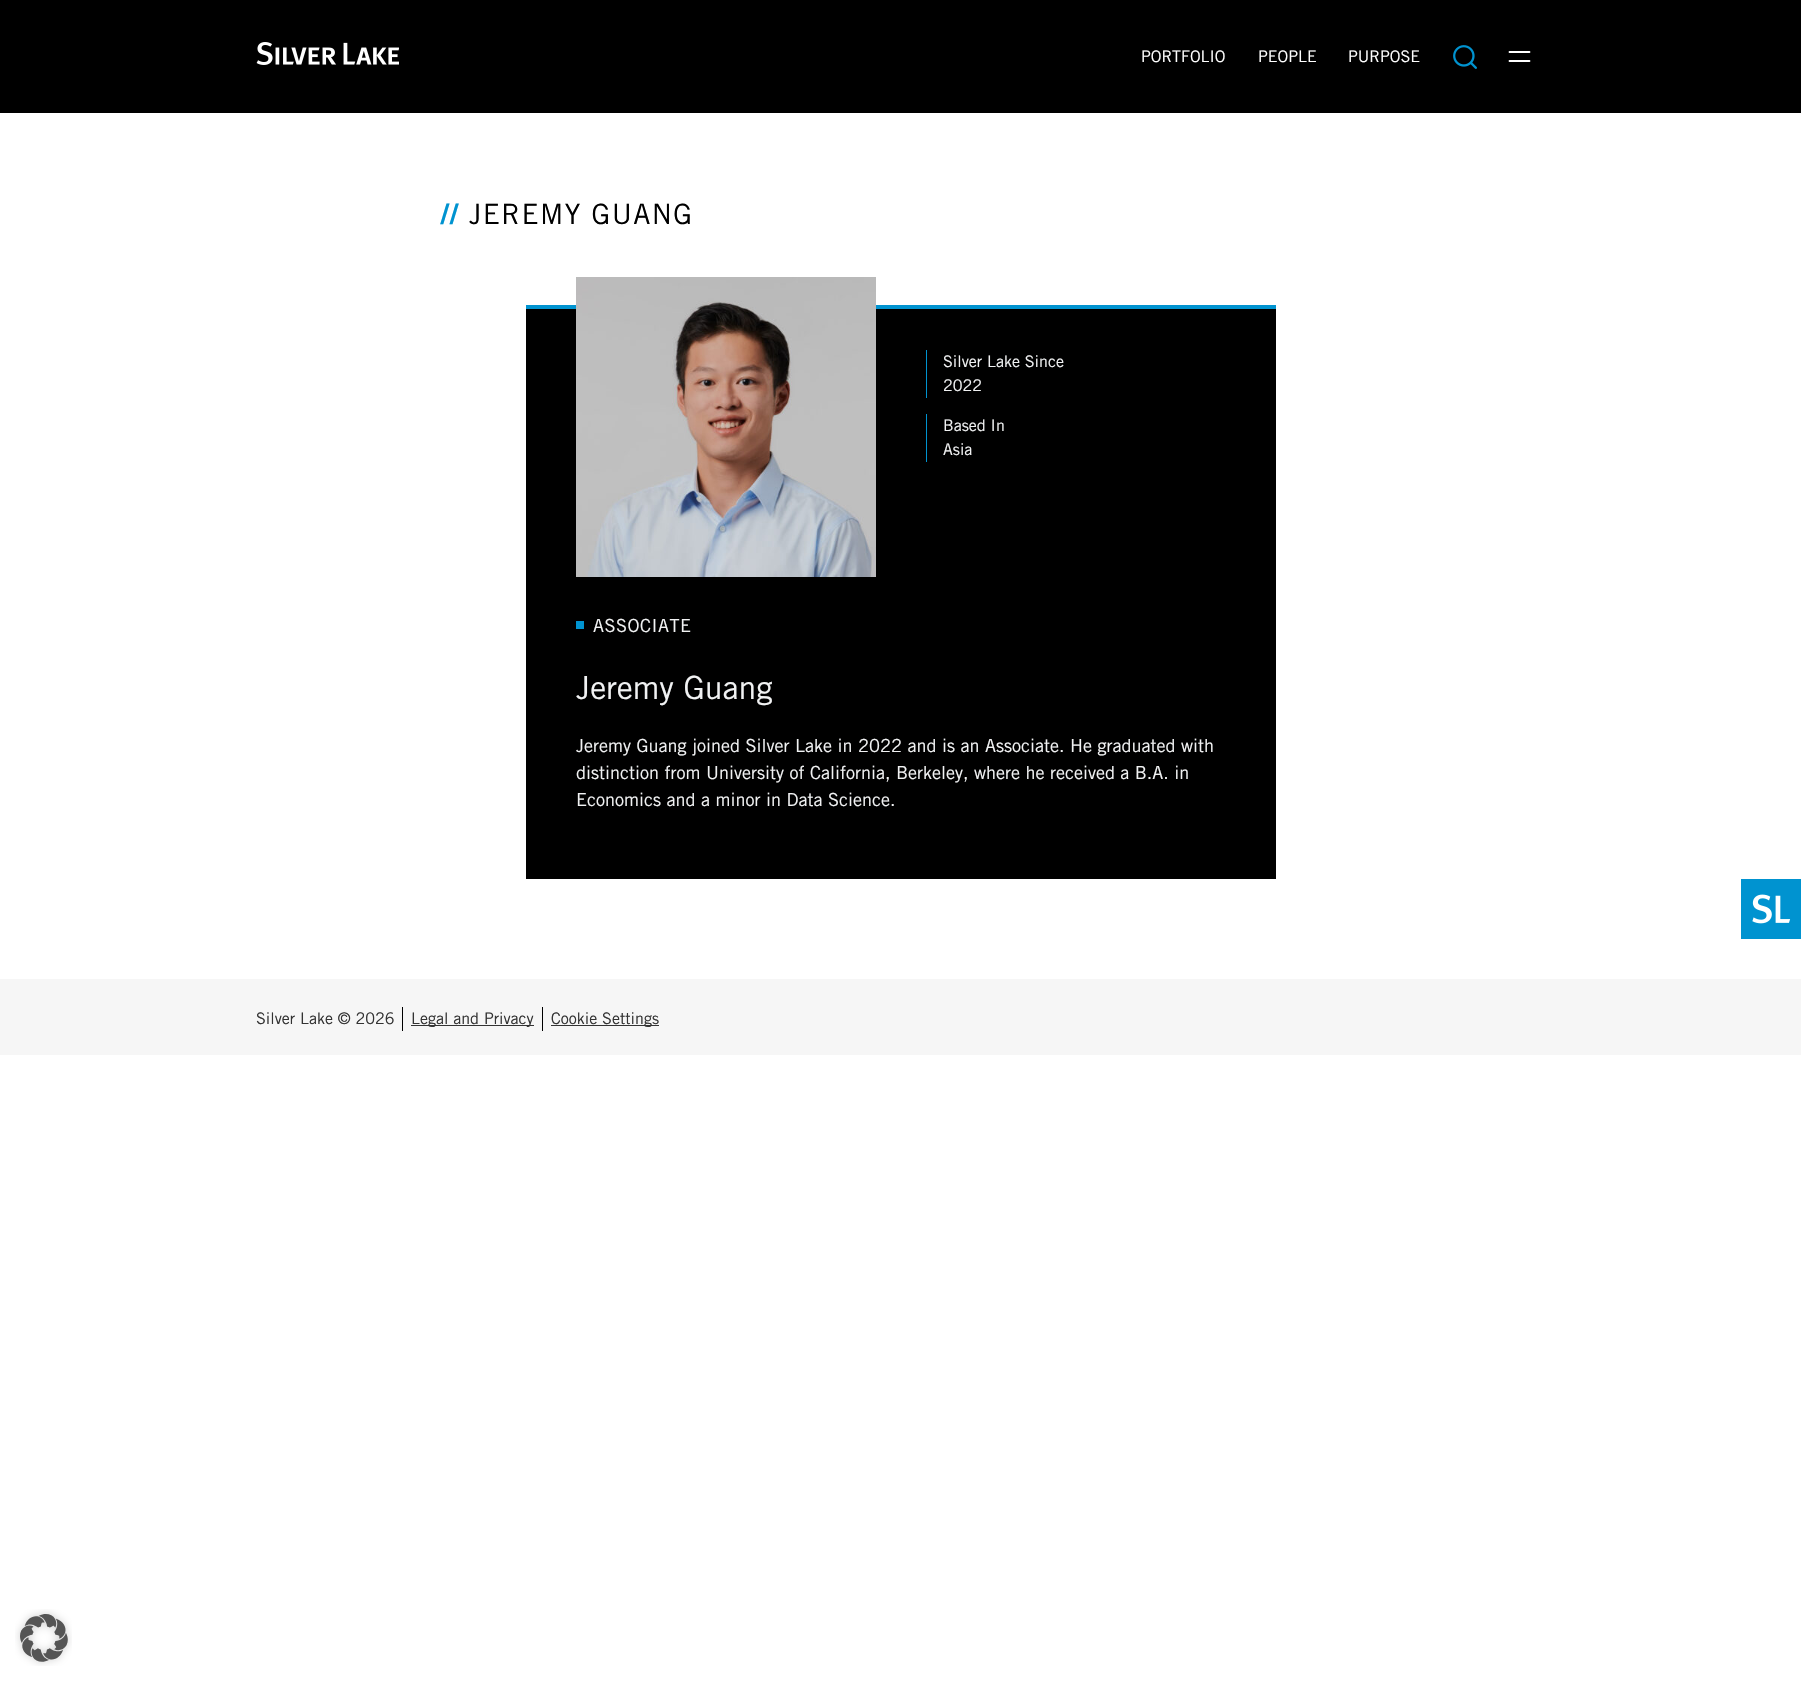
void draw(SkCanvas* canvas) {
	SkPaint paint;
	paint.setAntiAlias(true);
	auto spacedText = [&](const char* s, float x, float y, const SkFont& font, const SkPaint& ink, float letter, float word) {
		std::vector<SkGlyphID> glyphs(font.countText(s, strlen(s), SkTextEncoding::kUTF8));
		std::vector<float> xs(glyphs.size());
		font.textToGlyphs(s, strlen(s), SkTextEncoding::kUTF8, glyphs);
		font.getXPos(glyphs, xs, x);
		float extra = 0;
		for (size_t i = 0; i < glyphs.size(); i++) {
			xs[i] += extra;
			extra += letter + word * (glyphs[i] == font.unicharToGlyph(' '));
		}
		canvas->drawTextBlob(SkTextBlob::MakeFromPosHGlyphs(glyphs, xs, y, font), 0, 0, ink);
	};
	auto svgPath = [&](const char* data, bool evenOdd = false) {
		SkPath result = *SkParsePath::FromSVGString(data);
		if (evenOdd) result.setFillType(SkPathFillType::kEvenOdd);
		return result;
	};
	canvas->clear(0xffffffff);
	paint.setColor(0xff000000);
	canvas->drawRect(SkRect::MakeXYWH(0, 0, 1801, 113), paint);
	canvas->drawImageRect(SkImages::DeferredFromEncodedData(SkData::MakeFromFileName("img1.png")), SkRect::MakeXYWH(256, 42, 143, 23), SkSamplingOptions());
	SkFont f1(fontMgr->matchFamilyStyle("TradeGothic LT", SkFontStyle::Normal()), 16);
	f1.setSubpixel(true);
	paint.setColor(0xffffffff);
	canvas->drawString("PORTFOLIO", 1141, 62, f1, paint);
	canvas->drawString("PEOPLE", 1258, 62, f1, paint);
	canvas->drawString("PURPOSE", 1348, 62, f1, paint);
	canvas->drawImageRect(SkImages::DeferredFromEncodedData(SkData::MakeFromFileName("img2.png")), SkRect::MakeXYWH(1453, 45, 24, 24), SkSamplingOptions());
	paint.setStroke(true);
	paint.setStrokeWidth(1.8);
	paint.setStrokeCap(SkPaint::kRound_Cap);
	canvas->drawPath(svgPath("M1509.5 52H1529.5M1509.5 61H1529.5"), paint);
	SkFont f2(fontMgr->matchFamilyStyle("TradeGothic LT", SkFontStyle::Bold()), 28);
	f2.setSubpixel(true);
	paint.setStroke(false);
	paint.setColor(0xff0093d0);
	spacedText("//", 441, 224, f2, paint, 1.4, 0);
	SkFont f3(fontMgr->matchFamilyStyle("TradeGothic LT", SkFontStyle::Normal()), 28);
	f3.setSubpixel(true);
	paint.setColor(0xff000000);
	spacedText("JEREMY GUANG", 469, 224, f3, paint, 1.4, 0);
	canvas->drawRect(SkRect::MakeXYWH(526, 309, 750, 570), paint);
	paint.setColor(0xff0093d0);
	canvas->drawRect(SkRect::MakeXYWH(526, 305, 750, 4), paint);
	canvas->drawImageRect(SkImages::DeferredFromEncodedData(SkData::MakeFromFileName("img3.png")), SkRect::MakeXYWH(576, 277, 300, 300), SkSamplingOptions());
	canvas->drawRect(SkRect::MakeXYWH(926, 350, 1, 48), paint);
	paint.setColor(0xfff1f2f3);
	canvas->drawString("Silver Lake Since", 943, 367, f1, paint);
	canvas->drawString("2022", 943, 391, f1, paint);
	paint.setColor(0xff0093d0);
	canvas->drawRect(SkRect::MakeXYWH(926, 414, 1, 48), paint);
	paint.setColor(0xfff1f2f3);
	canvas->drawString("Based In", 943, 431, f1, paint);
	canvas->drawString("Asia", 943, 455, f1, paint);
	paint.setColor(0xff0093d0);
	canvas->drawRect(SkRect::MakeXYWH(576, 621, 8, 8), paint);
	SkFont f4(fontMgr->matchFamilyStyle("TradeGothic LT", SkFontStyle::Normal()), 18);
	f4.setSubpixel(true);
	paint.setColor(0xfff1f2f3);
	spacedText("ASSOCIATE", 593, 632, f4, paint, 0.5, 0);
	SkFont f5(fontMgr->matchFamilyStyle("TradeGothic LT", SkFontStyle::Normal()), 32);
	f5.setSubpixel(true);
	canvas->drawString("Jeremy Guang", 576, 699, f5, paint);
	canvas->drawString("Jeremy Guang joined Silver Lake in 2022 and is an Associate. He graduated with", 576, 752, f4, paint);
	canvas->drawString("distinction from University of California, Berkeley, where he received a B.A. in", 576, 779, f4, paint);
	canvas->drawString("Economics and a minor in Data Science.", 576, 806, f4, paint);
	paint.setColor(0xfff6f6f6);
	canvas->drawRect(SkRect::MakeXYWH(0, 979, 1801, 76), paint);
	paint.setColor(0xff0093d0);
	canvas->drawRect(SkRect::MakeXYWH(1741, 879, 60, 60), paint);
	canvas->drawImageRect(SkImages::DeferredFromEncodedData(SkData::MakeFromFileName("img4.png")), SkRect::MakeXYWH(1752, 894, 39, 30), SkSamplingOptions());
	paint.setColor(0xff333333);
	canvas->drawString("Silver Lake © 2026", 256, 1024, f1, paint);
	paint.setColor(0xff000000);
	canvas->drawRect(SkRect::MakeXYWH(402, 1007, 1, 24), paint);
	paint.setColor(0xff333333);
	canvas->drawRect(SkRect::MakeXYWH(411, 1025, 123, 1), paint);
	canvas->drawString("Legal and Privacy", 411, 1024, f1, paint);
	paint.setColor(0xff000000);
	canvas->drawRect(SkRect::MakeXYWH(542, 1007, 1, 24), paint);
	paint.setColor(0xff333333);
	canvas->drawRect(SkRect::MakeXYWH(551, 1025, 108, 1), paint);
	canvas->drawString("Cookie Settings", 551, 1024, f1, paint);
	canvas->drawImageRect(SkImages::DeferredFromEncodedData(SkData::MakeFromFileName("img5.png")), SkRect::MakeXYWH(15, 1609, 57, 57), SkSamplingOptions());
}
